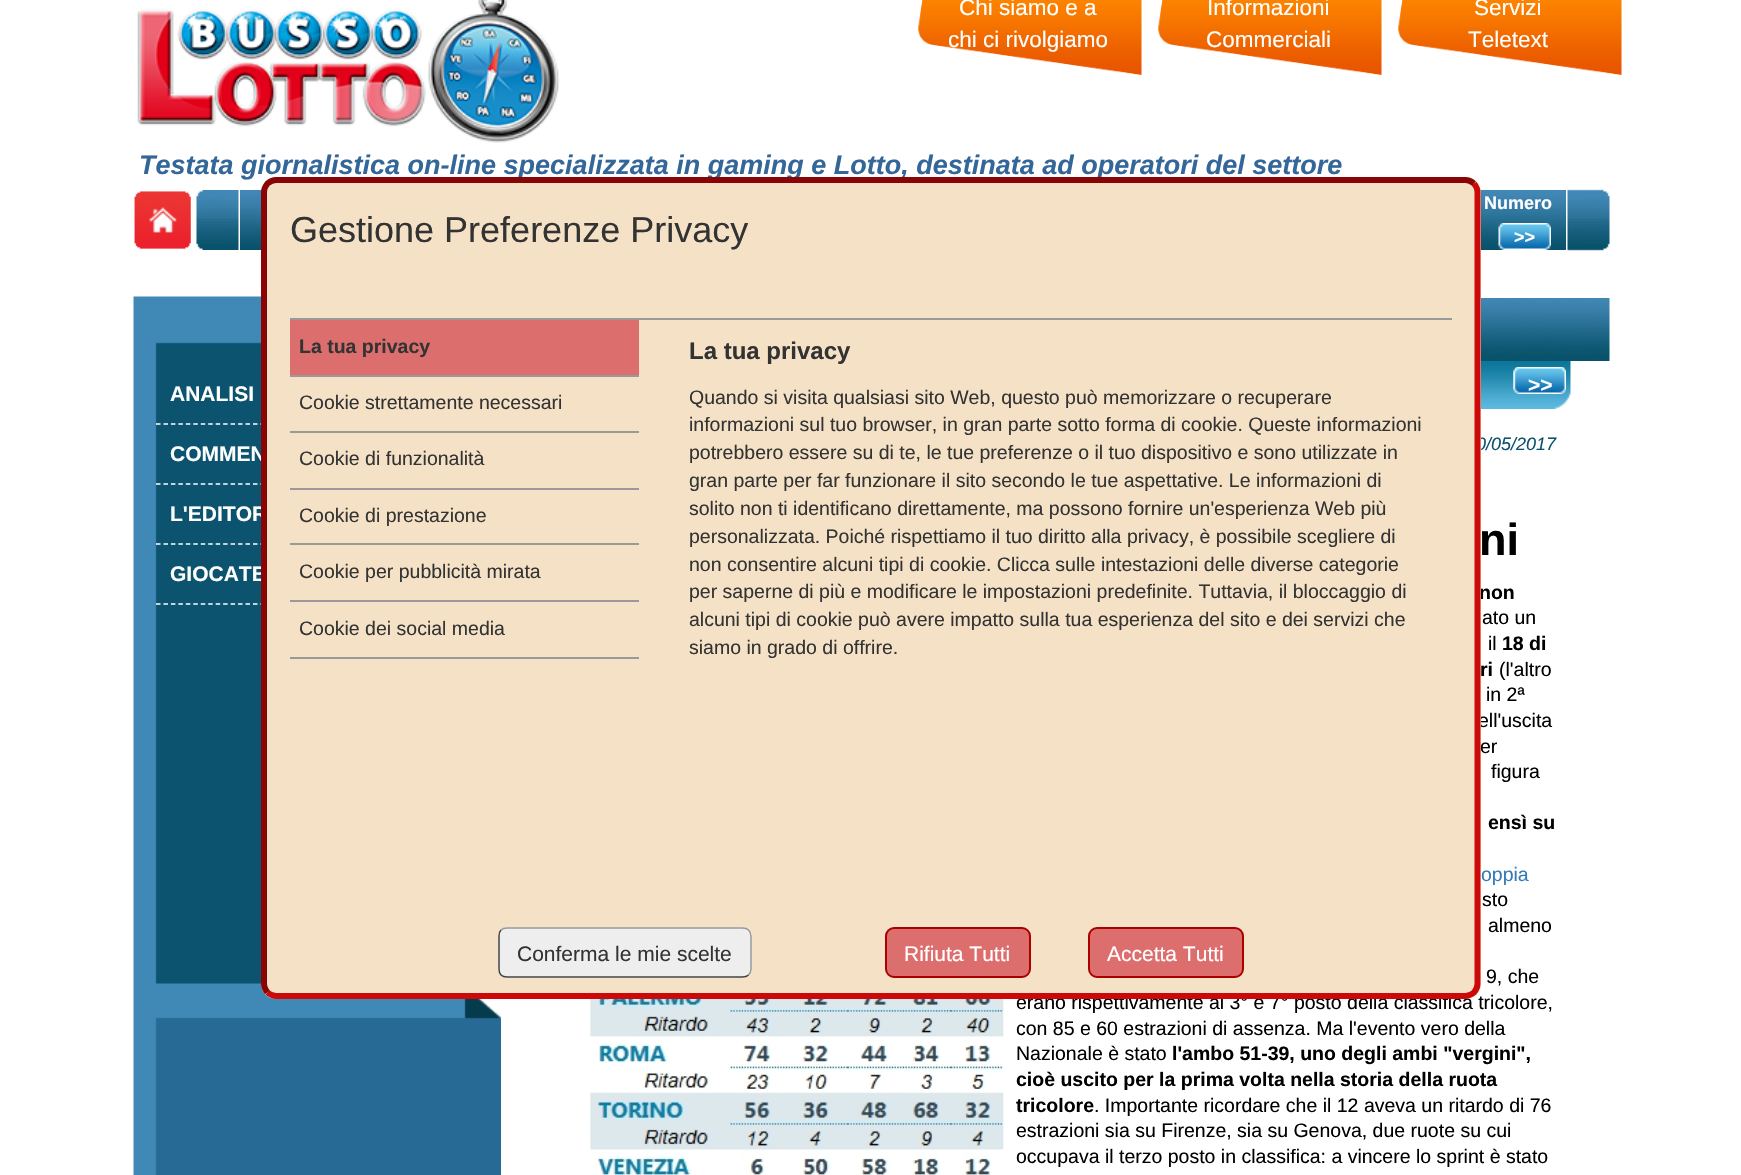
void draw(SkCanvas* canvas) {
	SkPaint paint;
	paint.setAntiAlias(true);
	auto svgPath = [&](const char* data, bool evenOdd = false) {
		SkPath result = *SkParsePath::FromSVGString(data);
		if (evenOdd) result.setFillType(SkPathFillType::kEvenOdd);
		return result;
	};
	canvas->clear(0xffffffff);
	canvas->drawImageRect(SkImages::DeferredFromEncodedData(SkData::MakeFromFileName("img1.png")), SkRect::MakeXYWH(137, 0, 423, 143), SkSamplingOptions());
	canvas->drawImageRect(SkImages::DeferredFromEncodedData(SkData::MakeFromFileName("img2.png")), SkRect::MakeXYWH(918, 0, 224, 75), SkSamplingOptions());
	SkFont f1(fontMgr->matchFamilyStyle("Liberation Sans", SkFontStyle::Normal()), 22.5);
	f1.setSubpixel(true);
	paint.setColor(0xffffffff);
	canvas->drawString("Chi siamo e a", 959, 15, f1, paint);
	canvas->drawString("chi ci rivolgiamo", 948, 47, f1, paint);
	canvas->drawImageRect(SkImages::DeferredFromEncodedData(SkData::MakeFromFileName("img2.png")), SkRect::MakeXYWH(1158, 0, 224, 75), SkSamplingOptions());
	canvas->drawString("Informazioni", 1207, 15, f1, paint);
	canvas->drawString("Commerciali", 1206, 47, f1, paint);
	canvas->drawImageRect(SkImages::DeferredFromEncodedData(SkData::MakeFromFileName("img2.png")), SkRect::MakeXYWH(1398, 0, 224, 75), SkSamplingOptions());
	canvas->drawString("Servizi", 1474, 15, f1, paint);
	canvas->drawString("Teletext", 1468, 47, f1, paint);
	SkFont f2(fontMgr->matchFamilyStyle("Liberation Sans", SkFontStyle::BoldItalic()), 27);
	f2.setSubpixel(true);
	paint.setColor(0xff336699);
	canvas->drawString("Testata giornalistica on-line specializzata in gaming e Lotto, destinata ad operatori del settore", 139, 174, f2, paint);
	canvas->drawImageRect(SkImages::DeferredFromEncodedData(SkData::MakeFromFileName("img3.png")), SkRect::MakeXYWH(134, 191, 57, 58), SkSamplingOptions());
	canvas->drawImageRect(SkImages::DeferredFromEncodedData(SkData::MakeFromFileName("img4.png")), SkRect::MakeXYWH(196, 190, 43, 60), SkSamplingOptions());
	canvas->drawImageRect(SkImages::DeferredFromEncodedData(SkData::MakeFromFileName("img5.png")), SkRect::MakeXYWH(240, 190, 22, 60), SkSamplingOptions());
	canvas->drawImageRect(SkImages::DeferredFromEncodedData(SkData::MakeFromFileName("img6.png")), SkRect::MakeXYWH(1480, 190, 86, 60), SkSamplingOptions());
	SkFont f3(fontMgr->matchFamilyStyle("Liberation Sans", SkFontStyle::Bold()), 18);
	f3.setSubpixel(true);
	paint.setColor(0xffffffff);
	canvas->drawString("Numero", 1484, 209, f3, paint);
	canvas->drawImageRect(SkImages::DeferredFromEncodedData(SkData::MakeFromFileName("img7.png")), SkRect::MakeXYWH(1498, 223, 53, 27), SkSamplingOptions());
	canvas->drawString(">>", 1514, 243, f3, paint);
	canvas->drawImageRect(SkImages::DeferredFromEncodedData(SkData::MakeFromFileName("img8.png")), SkRect::MakeXYWH(1567, 189, 43, 62), SkSamplingOptions());
	canvas->drawImageRect(SkImages::DeferredFromEncodedData(SkData::MakeFromFileName("img9.png")), SkRect::MakeXYWH(133, 296, 368, 879), SkSamplingOptions());
	paint.setStroke(true);
	paint.setStrokeWidth(1.5);
	paint.setPathEffect(SkDashPathEffect::Make({{4.5f, 2.96f}}, 0));
	canvas->drawPath(svgPath("M156 424H451.5"), paint);
	paint.setPathEffect(nullptr);
	SkFont f4(fontMgr->matchFamilyStyle("Liberation Sans", SkFontStyle::Bold()), 21);
	f4.setSubpixel(true);
	paint.setStroke(false);
	canvas->drawString("ANALISI", 170, 401, f4, paint);
	paint.setStroke(true);
	paint.setPathEffect(SkDashPathEffect::Make({{4.5f, 2.96f}}, 0));
	canvas->drawPath(svgPath("M156 484H451.5"), paint);
	paint.setPathEffect(nullptr);
	paint.setStroke(false);
	canvas->drawString("COMMEN", 170, 461, f4, paint);
	paint.setStroke(true);
	paint.setPathEffect(SkDashPathEffect::Make({{4.5f, 2.96f}}, 0));
	canvas->drawPath(svgPath("M156 544H451.5"), paint);
	paint.setPathEffect(nullptr);
	paint.setStroke(false);
	canvas->drawString("L'EDITOR", 170, 521, f4, paint);
	paint.setStroke(true);
	paint.setPathEffect(SkDashPathEffect::Make({{4.5f, 2.96f}}, 0));
	canvas->drawPath(svgPath("M156 604H451.5"), paint);
	paint.setPathEffect(nullptr);
	paint.setStroke(false);
	canvas->drawString("GIOCATE", 170, 581, f4, paint);
	canvas->drawImageRect(SkImages::DeferredFromEncodedData(SkData::MakeFromFileName("img10.png")), SkRect::MakeXYWH(1481, 298, 129, 63), SkSamplingOptions());
	canvas->drawImageRect(SkImages::DeferredFromEncodedData(SkData::MakeFromFileName("img11.png")), SkRect::MakeXYWH(1481, 361, 90, 48), SkSamplingOptions());
	canvas->drawImageRect(SkImages::DeferredFromEncodedData(SkData::MakeFromFileName("img12.png")), SkRect::MakeXYWH(1513, 367, 53, 27), SkSamplingOptions());
	canvas->drawImageRect(SkImages::DeferredFromEncodedData(SkData::MakeFromFileName("img13.png")), SkRect::MakeXYWH(1513, 367, 53, 27), SkSamplingOptions());
	canvas->drawString(">>", 1528, 392, f4, paint);
	SkFont f5(fontMgr->matchFamilyStyle("Liberation Sans", SkFontStyle::Italic()), 18);
	f5.setSubpixel(true);
	paint.setColor(0xff0b536e);
	canvas->drawString("0/05/2017", 1476, 450, f5, paint);
	SkFont f6(fontMgr->matchFamilyStyle("Liberation Sans", SkFontStyle::Bold()), 45);
	f6.setSubpixel(true);
	paint.setColor(0xff000000);
	canvas->drawString("ni", 1479, 555, f6, paint);
	SkFont f7(fontMgr->matchFamilyStyle("Liberation Sans", SkFontStyle::Bold()), 19.5);
	f7.setSubpixel(true);
	canvas->drawString("non", 1479, 599, f7, paint);
	SkFont f8(fontMgr->matchFamilyStyle("Liberation Sans", SkFontStyle::Normal()), 19.5);
	f8.setSubpixel(true);
	canvas->drawString("ato un", 1482, 624, f8, paint);
	canvas->drawString("il", 1488, 650, f8, paint);
	canvas->drawString("18 di", 1502, 650, f7, paint);
	canvas->drawString("ri", 1480, 676, f7, paint);
	canvas->drawString("(l'altro", 1499, 676, f8, paint);
	canvas->drawString("in 2ª", 1486, 701, f8, paint);
	canvas->drawString("ell'uscita", 1478, 727, f8, paint);
	canvas->drawString("er", 1480, 753, f8, paint);
	canvas->drawString("figura", 1491, 778, f8, paint);
	canvas->drawString("ensì su", 1488, 829, f7, paint);
	paint.setColor(0xff337ab7);
	canvas->drawString("oppia", 1481, 881, f8, paint);
	paint.setColor(0xff000000);
	canvas->drawString("sto", 1482, 906, f8, paint);
	canvas->drawString("almeno", 1488, 932, f8, paint);
	canvas->drawString("9, che", 1486, 983, f8, paint);
	canvas->drawImageRect(SkImages::DeferredFromEncodedData(SkData::MakeFromFileName("img14.png")), SkRect::MakeXYWH(590, 999, 414, 176), SkSamplingOptions());
	canvas->drawString("erano rispettivamente al 3° e 7° posto della classifica tricolore,", 1016, 1009, f8, paint);
	canvas->drawString("con 85 e 60 estrazioni di assenza. Ma l'evento vero della", 1016, 1035, f8, paint);
	canvas->drawString("Nazionale è stato", 1016, 1060, f8, paint);
	canvas->drawString("l'ambo 51-39, uno degli ambi \"vergini\",", 1172, 1060, f7, paint);
	canvas->drawString("cioè uscito per la prima volta nella storia della ruota", 1016, 1086, f7, paint);
	canvas->drawString("tricolore", 1016, 1112, f7, paint);
	canvas->drawString(". Importante ricordare che il 12 aveva un ritardo di 76", 1094, 1112, f8, paint);
	canvas->drawString("estrazioni sia su Firenze, sia su Genova, due ruote su cui", 1016, 1137, f8, paint);
	canvas->drawString("occupava il terzo posto in classifica: a vincere lo sprint è stato", 1016, 1163, f8, paint);
	paint.setColor(0xfff5e2c6);
	canvas->drawRoundRect(SkRect::MakeXYWH(261, 177, 1220, 822), 15, 15, paint);
	paint.setStroke(true);
	paint.setStrokeWidth(6);
	paint.setColor(0xffcd0808);
	canvas->drawPath(svgPath("M1474 183.5C1476 186 1477.5 189 1477.5 192V984C1477.5 987 1476 990 1474 992.5C1471.5 994.5 1468.5 996 1465.5 996H276C273 996 270 994.5 267.5 992.5"), paint);
	paint.setColor(0xff890505);
	canvas->drawPath(svgPath("M267.5 992.5C265.5 990 264 987 264 984V192C264 189 265.5 186 267.5 183.5C270 181.5 273 180 276 180H1465.5C1468.5 180 1471.5 181.5 1474 183.5"), paint);
	paint.setStroke(false);
	paint.setColor(0xff999999);
	canvas->drawRect(SkRect::MakeXYWH(290, 318, 1162, 2), paint);
	SkFont f9(fontMgr->matchFamilyStyle("Liberation Sans", SkFontStyle::Normal()), 36);
	f9.setSubpixel(true);
	paint.setColor(0xff333333);
	canvas->drawString("Gestione Preferenze Privacy", 290, 242, f9, paint);
	paint.setColor(0xffdd6e6e);
	canvas->drawRect(SkRect::MakeXYWH(290, 320, 349, 55), paint);
	paint.setColor(0xff999999);
	canvas->drawRect(SkRect::MakeXYWH(290, 375, 349, 2), paint);
	paint.setColor(0xff333333);
	canvas->drawString("La tua privacy", 299, 353, f7, paint);
	paint.setColor(0xff999999);
	canvas->drawRect(SkRect::MakeXYWH(290, 431, 349, 2), paint);
	paint.setColor(0xff333333);
	canvas->drawString("Cookie strettamente necessari", 299, 409, f8, paint);
	paint.setColor(0xff999999);
	canvas->drawRect(SkRect::MakeXYWH(290, 488, 349, 2), paint);
	paint.setColor(0xff333333);
	canvas->drawString("Cookie di funzionalità", 299, 465, f8, paint);
	paint.setColor(0xff999999);
	canvas->drawRect(SkRect::MakeXYWH(290, 543, 349, 2), paint);
	paint.setColor(0xff333333);
	canvas->drawString("Cookie di prestazione", 299, 522, f8, paint);
	paint.setColor(0xff999999);
	canvas->drawRect(SkRect::MakeXYWH(290, 600, 349, 2), paint);
	paint.setColor(0xff333333);
	canvas->drawString("Cookie per pubblicità mirata", 299, 578, f8, paint);
	paint.setColor(0xff999999);
	canvas->drawRect(SkRect::MakeXYWH(290, 657, 349, 2), paint);
	paint.setColor(0xff333333);
	canvas->drawString("Cookie dei social media", 299, 635, f8, paint);
	SkFont f10(fontMgr->matchFamilyStyle("Liberation Sans", SkFontStyle::Bold()), 24);
	f10.setSubpixel(true);
	canvas->drawString("La tua privacy", 689, 359, f10, paint);
	canvas->drawString("Quando si visita qualsiasi sito Web, questo può memorizzare o recuperare", 689, 404, f8, paint);
	canvas->drawString("informazioni sul tuo browser, in gran parte sotto forma di cookie. Queste informazioni", 689, 431, f8, paint);
	canvas->drawString("potrebbero essere su di te, le tue preferenze o il tuo dispositivo e sono utilizzate in", 689, 459, f8, paint);
	canvas->drawString("gran parte per far funzionare il sito secondo le tue aspettative. Le informazioni di", 689, 487, f8, paint);
	canvas->drawString("solito non ti identificano direttamente, ma possono fornire un'esperienza Web più", 689, 515, f8, paint);
	canvas->drawString("personalizzata. Poiché rispettiamo il tuo diritto alla privacy, è possibile scegliere di", 689, 543, f8, paint);
	canvas->drawString("non consentire alcuni tipi di cookie. Clicca sulle intestazioni delle diverse categorie", 689, 571, f8, paint);
	canvas->drawString("per saperne di più e modificare le impostazioni predefinite. Tuttavia, il bloccaggio di", 689, 598, f8, paint);
	canvas->drawString("alcuni tipi di cookie può avere impatto sulla tua esperienza del sito e dei servizi che", 689, 626, f8, paint);
	canvas->drawString("siamo in grado di offrire.", 689, 654, f8, paint);
	paint.setColor(0xffeeeeee);
	canvas->drawRoundRect(SkRect::MakeXYWH(498, 927, 254, 51), 9, 9, paint);
	paint.setStroke(true);
	paint.setStrokeWidth(1.5);
	paint.setColor(0xff999999);
	canvas->drawPath(svgPath("M501 930C502.5 928.5 505 928 507 928H742.5C744.5 928 747 928.5 748.5 930C750 931.5 751 934 751 936V969C751 971 750 973.5 748.5 975"), paint);
	paint.setColor(0xff444444);
	canvas->drawPath(svgPath("M748.5 975C747 976.5 744.5 977 742.5 977H507C505 977 502.5 976.5 501 975C499.5 973.5 499 971 499 969V936C499 934 499.5 931.5 501 930"), paint);
	SkFont f11(fontMgr->matchFamilyStyle("Liberation Sans", SkFontStyle::Normal()), 21);
	f11.setSubpixel(true);
	paint.setStroke(false);
	paint.setColor(0xff333333);
	canvas->drawString("Conferma le mie scelte", 517, 961, f11, paint);
	paint.setColor(0xffdd6e6e);
	canvas->drawRoundRect(SkRect::MakeXYWH(886, 928, 144, 49), 8, 8, paint);
	paint.setStroke(true);
	paint.setStrokeWidth(2);
	paint.setColor(0xffaa0000);
	canvas->drawRoundRect(SkRect::MakeXYWH(886, 928, 144, 49), 8, 8, paint);
	paint.setStroke(false);
	paint.setColor(0xffffffff);
	canvas->drawString("Rifiuta Tutti", 904, 961, f11, paint);
	paint.setColor(0xffdd6e6e);
	canvas->drawRoundRect(SkRect::MakeXYWH(1089, 928, 154, 49), 8, 8, paint);
	paint.setStroke(true);
	paint.setColor(0xffaa0000);
	canvas->drawRoundRect(SkRect::MakeXYWH(1089, 928, 154, 49), 8, 8, paint);
	paint.setStroke(false);
	paint.setColor(0xffffffff);
	canvas->drawString("Accetta Tutti", 1107, 961, f11, paint);
}
